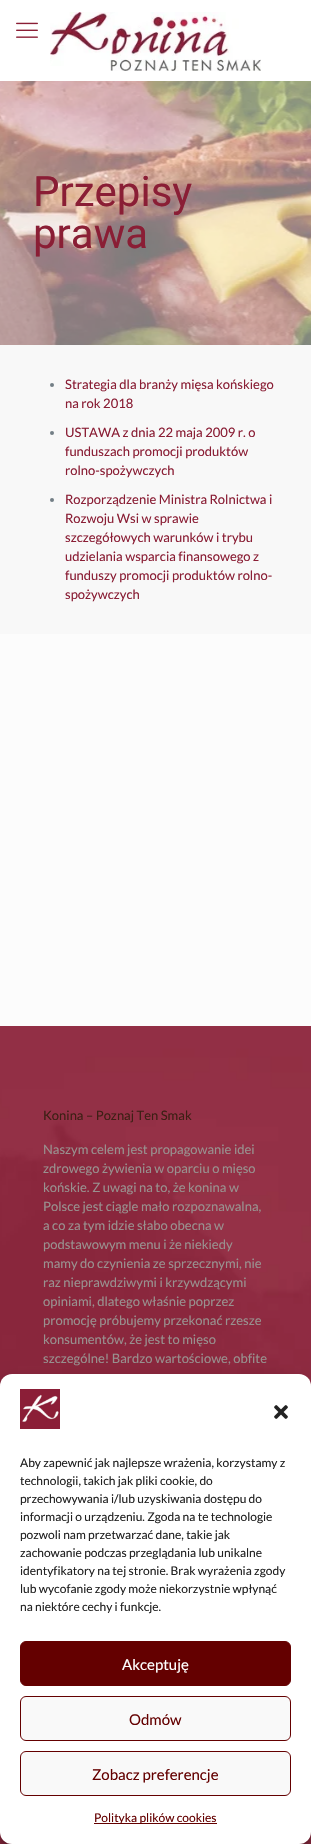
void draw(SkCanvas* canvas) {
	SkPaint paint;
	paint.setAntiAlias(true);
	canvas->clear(0xfffcfcfc);
	paint.setColor(0xfff8f8f8);
	canvas->drawRect(SkRect::MakeXYWH(0, 345, 311, 289), paint);
	canvas->drawImageRect(SkImages::DeferredFromEncodedData(SkData::MakeFromFileName("img1.png")), SkRect::MakeXYWH(0, 81, 311, 264), SkSamplingOptions());
	paint.setColor(0xffffffff);
	canvas->drawRect(SkRect::MakeXYWH(0, 0, 311, 81), paint);
	canvas->drawImageRect(SkImages::DeferredFromEncodedData(SkData::MakeFromFileName("img2.png")), SkRect::MakeXYWH(16, 22, 22, 16), SkSamplingOptions());
	canvas->drawImageRect(SkImages::DeferredFromEncodedData(SkData::MakeFromFileName("img3.png")), SkRect::MakeXYWH(50, 12, 211, 59), SkSamplingOptions());
	paint.setColor(0x80f7f7f7);
	canvas->drawRect(SkRect::MakeXYWH(0, 81, 311, 264), paint);
	SkFont f1(fontMgr->matchFamilyStyle("Roboto", SkFontStyle::Normal()), 42);
	f1.setSubpixel(true);
	paint.setColor(0xff8a1e35);
	canvas->drawString("Przepisy", 33, 206, f1, paint);
	canvas->drawString("prawa", 33, 248, f1, paint);
	paint.setColor(0xff737e86);
	canvas->drawCircle(52, 385, 2, paint);
	SkFont f2(fontMgr->matchFamilyStyle("Lato", SkFontStyle::Normal()), 13);
	f2.setSubpixel(true);
	paint.setColor(0xff8a1e35);
	canvas->drawString("Strategia dla branży mięsa końskiego", 65, 389, f2, paint);
	canvas->drawString("na rok 2018", 65, 408, f2, paint);
	paint.setColor(0xff737e86);
	canvas->drawCircle(52, 433, 2, paint);
	paint.setColor(0xff8a1e35);
	canvas->drawString("USTAWA z dnia 22 maja 2009 r. o", 65, 437, f2, paint);
	canvas->drawString("funduszach promocji produktów", 65, 456, f2, paint);
	canvas->drawString("rolno-spożywczych", 65, 475, f2, paint);
	paint.setColor(0xff737e86);
	canvas->drawCircle(52, 500, 2, paint);
	paint.setColor(0xff8a1e35);
	canvas->drawString("Rozporządzenie Ministra Rolnictwa i", 65, 504, f2, paint);
	canvas->drawString("Rozwoju Wsi w sprawie", 65, 523, f2, paint);
	canvas->drawString("szczegółowych warunków i trybu", 65, 542, f2, paint);
	canvas->drawString("udzielania wsparcia finansowego z", 65, 561, f2, paint);
	canvas->drawString("funduszy promocji produktów rolno-", 65, 580, f2, paint);
	canvas->drawString("spożywczych", 65, 599, f2, paint);
	canvas->drawImageRect(SkImages::DeferredFromEncodedData(SkData::MakeFromFileName("img4.png")), SkRect::MakeXYWH(0, 1026, 311, 818), SkSamplingOptions());
	paint.setColor(0xff3d1f14);
	canvas->drawString("Konina – Poznaj Ten Smak", 43, 1120, f2, paint);
	paint.setColor(0xff99918f);
	canvas->drawString("Naszym celem jest propagowanie idei", 43, 1154, f2, paint);
	canvas->drawString("zdrowego żywienia w oparciu o mięso", 43, 1173, f2, paint);
	canvas->drawString("końskie. Z uwagi na to, że konina w", 43, 1192, f2, paint);
	canvas->drawString("Polsce jest ciągle mało rozpoznawalna,", 43, 1211, f2, paint);
	canvas->drawString("a co za tym idzie słabo obecna w", 43, 1230, f2, paint);
	canvas->drawString("podstawowym menu i że niekiedy", 43, 1249, f2, paint);
	canvas->drawString("mamy do czynienia ze sprzecznymi, nie", 43, 1268, f2, paint);
	canvas->drawString("raz nieprawdziwymi i krzywdzącymi", 43, 1287, f2, paint);
	canvas->drawString("opiniami, dlatego właśnie poprzez", 43, 1306, f2, paint);
	canvas->drawString("promocję próbujemy przekonać rzesze", 43, 1325, f2, paint);
	canvas->drawString("konsumentów, że jest to mięso", 43, 1344, f2, paint);
	canvas->drawString("szczególne! Bardzo wartościowe, obfite", 43, 1363, f2, paint);
	paint.setColor(0x3b000000);
	paint.setMaskFilter(SkMaskFilter::MakeBlur(kNormal_SkBlurStyle, 3));
	canvas->drawRoundRect(SkRect::MakeXYWH(0, 1380, 311, 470), 12, 12, paint);
	paint.setMaskFilter(nullptr);
	paint.setColor(0x30000000);
	paint.setMaskFilter(SkMaskFilter::MakeBlur(kNormal_SkBlurStyle, 10));
	canvas->drawRoundRect(SkRect::MakeXYWH(0, 1384, 311, 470), 12, 12, paint);
	paint.setMaskFilter(nullptr);
	paint.setColor(0xffffffff);
	canvas->drawRoundRect(SkRect::MakeXYWH(0, 1374, 311, 470), 12, 12, paint);
	canvas->drawImageRect(SkImages::DeferredFromEncodedData(SkData::MakeFromFileName("img5.png")), SkRect::MakeXYWH(20, 1389, 40, 40), SkSamplingOptions());
	canvas->drawImageRect(SkImages::DeferredFromEncodedData(SkData::MakeFromFileName("img6.png")), SkRect::MakeXYWH(274, 1405, 14, 14), SkSamplingOptions());
	SkFont f3(fontMgr->matchFamilyStyle("Lato", SkFontStyle::Normal()), 12);
	f3.setSubpixel(true);
	paint.setColor(0xff222222);
	canvas->drawString("Aby zapewnić jak najlepsze wrażenia, korzystamy z", 20, 1467, f3, paint);
	canvas->drawString("technologii, takich jak pliki cookie, do", 20, 1485, f3, paint);
	canvas->drawString("przechowywania i/lub uzyskiwania dostępu do", 20, 1503, f3, paint);
	canvas->drawString("informacji o urządzeniu. Zgoda na te technologie", 20, 1521, f3, paint);
	canvas->drawString("pozwoli nam przetwarzać dane, takie jak", 20, 1539, f3, paint);
	canvas->drawString("zachowanie podczas przeglądania lub unikalne", 20, 1557, f3, paint);
	canvas->drawString("identyfikatory na tej stronie. Brak wyrażenia zgody", 20, 1575, f3, paint);
	canvas->drawString("lub wycofanie zgody może niekorzystnie wpłynąć", 20, 1593, f3, paint);
	canvas->drawString("na niektóre cechy i funkcje.", 20, 1611, f3, paint);
	paint.setColor(0xff640000);
	canvas->drawRoundRect(SkRect::MakeXYWH(20.5, 1641.5, 270, 44), 5.5, 5.5, paint);
	paint.setStroke(true);
	paint.setStrokeWidth(1);
	canvas->drawRoundRect(SkRect::MakeXYWH(20.5, 1641.5, 270, 44), 5.5, 5.5, paint);
	SkFont f4(fontMgr->matchFamilyStyle("Lato", SkFontStyle::Normal()), 15);
	f4.setSubpixel(true);
	paint.setStroke(false);
	paint.setColor(0xffffffff);
	canvas->drawString("Akceptuję", 122, 1670, f4, paint);
	paint.setColor(0xfff9f9f9);
	canvas->drawRoundRect(SkRect::MakeXYWH(20.5, 1696.5, 270, 44), 5.5, 5.5, paint);
	paint.setStroke(true);
	paint.setColor(0xff640000);
	canvas->drawRoundRect(SkRect::MakeXYWH(20.5, 1696.5, 270, 44), 5.5, 5.5, paint);
	paint.setStroke(false);
	canvas->drawString("Odmów", 129, 1725, f4, paint);
	paint.setColor(0xfff9f9f9);
	canvas->drawRoundRect(SkRect::MakeXYWH(20.5, 1751.5, 270, 44), 5.5, 5.5, paint);
	paint.setStroke(true);
	paint.setColor(0xff640000);
	canvas->drawRoundRect(SkRect::MakeXYWH(20.5, 1751.5, 270, 44), 5.5, 5.5, paint);
	paint.setStroke(false);
	canvas->drawString("Zobacz preferencje", 92, 1780, f4, paint);
	canvas->drawRect(SkRect::MakeXYWH(94, 1823, 123, 1), paint);
	canvas->drawString("Polityka plików cookies", 94, 1822, f3, paint);
}
